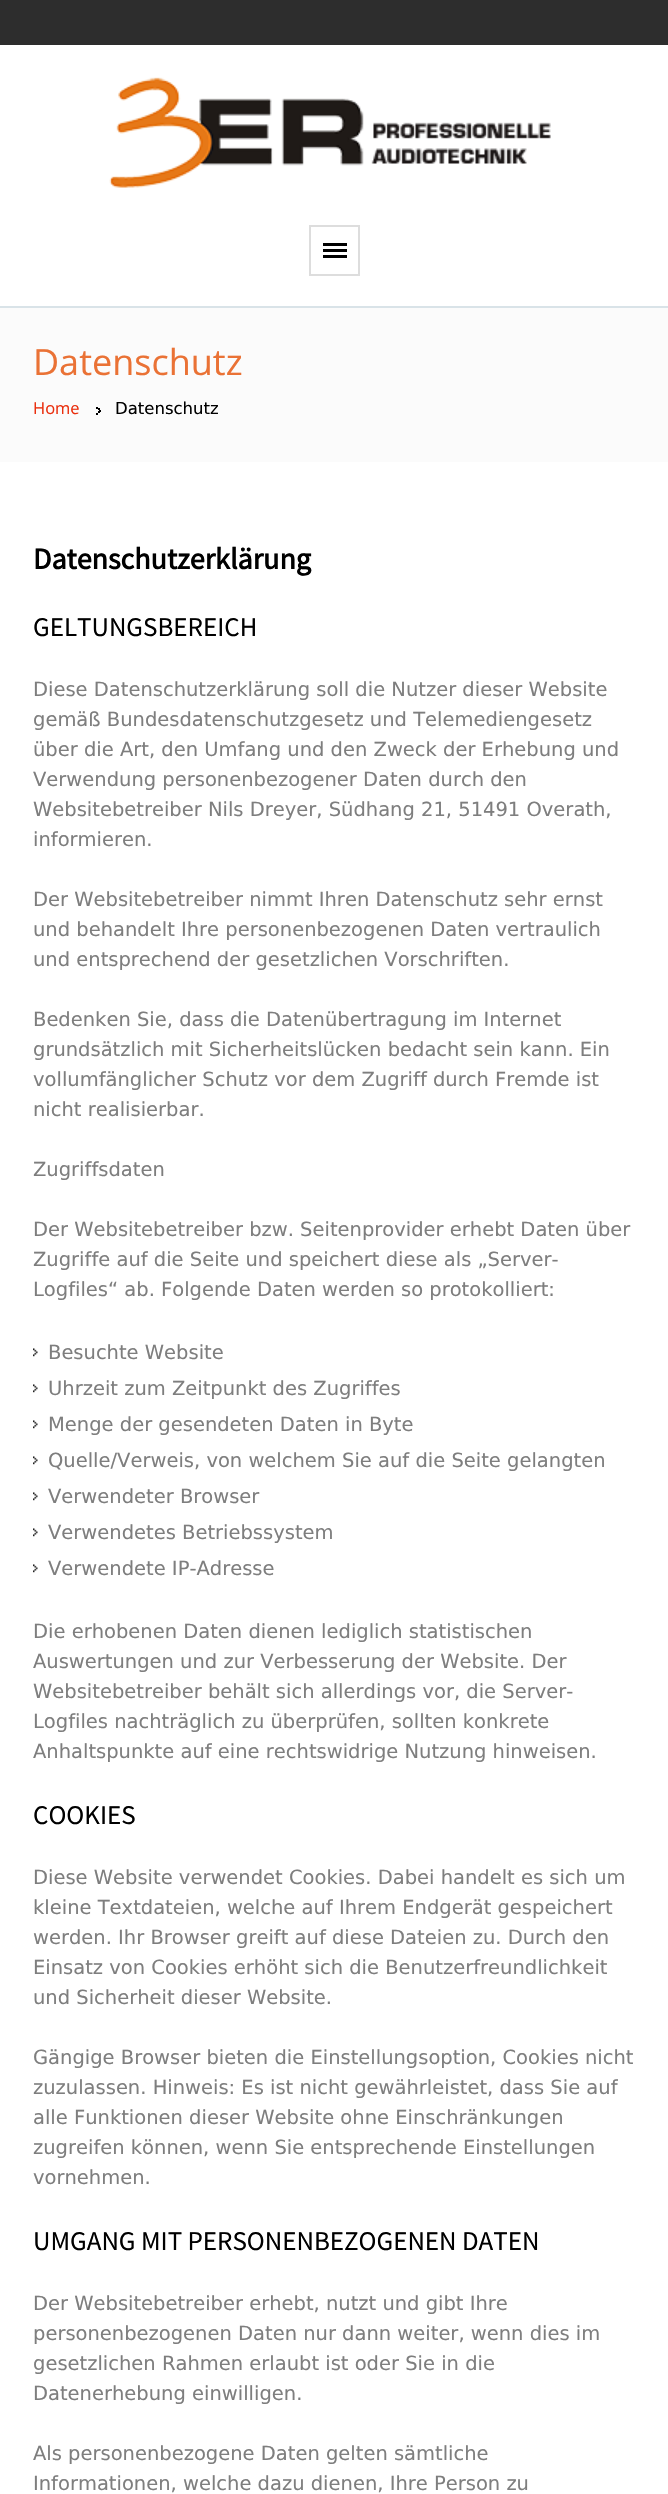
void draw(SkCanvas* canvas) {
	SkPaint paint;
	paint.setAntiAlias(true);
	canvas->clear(0xffffffff);
	paint.setColor(0xff2d2d2d);
	canvas->drawRect(SkRect::MakeXYWH(0, 0, 668, 45), paint);
	paint.setColor(0xffd9e3e8);
	canvas->drawRect(SkRect::MakeXYWH(0, 306, 668, 2), paint);
	canvas->drawImageRect(SkImages::DeferredFromEncodedData(SkData::MakeFromFileName("img1.png")), SkRect::MakeXYWH(109, 77, 442, 111), SkSamplingOptions());
	paint.setStroke(true);
	paint.setStrokeWidth(2);
	paint.setColor(0xffdddddd);
	canvas->drawRect(SkRect::MakeXYWH(310, 226, 49, 49), paint);
	paint.setStroke(false);
	paint.setColor(0xff000000);
	canvas->drawRect(SkRect::MakeXYWH(323, 243, 24, 3), paint);
	canvas->drawRect(SkRect::MakeXYWH(323, 249, 24, 3), paint);
	canvas->drawRect(SkRect::MakeXYWH(323, 255, 24, 3), paint);
	paint.setColor(0xfffbfbfb);
	canvas->drawRect(SkRect::MakeXYWH(0, 308, 668, 154), paint);
	SkFont f1(fontMgr->matchFamilyStyle("Open Sans", SkFontStyle::Normal()), 36);
	f1.setSubpixel(true);
	paint.setColor(0xffea7235);
	canvas->drawString("Datenschutz", 33, 375, f1, paint);
	SkFont f2(fontMgr->matchFamilyStyle("Open Sans", SkFontStyle::Normal()), 16.5);
	f2.setSubpixel(true);
	paint.setColor(0xffea2e0d);
	canvas->drawString("Home", 33, 414, f2, paint);
	paint.setColor(0xff000000);
	canvas->drawRect(SkRect::MakeXYWH(96, 407, 2, 2), paint);
	canvas->drawRect(SkRect::MakeXYWH(96, 413, 2, 2), paint);
	canvas->drawRect(SkRect::MakeXYWH(98, 408, 2, 2), paint);
	canvas->drawRect(SkRect::MakeXYWH(99, 410, 2, 2), paint);
	canvas->drawRect(SkRect::MakeXYWH(98, 411, 2, 2), paint);
	SkFont f3(fontMgr->matchFamilyStyle("DejaVu Sans", SkFontStyle::Normal()), 16.5);
	f3.setSubpixel(true);
	canvas->drawString("Datenschutz", 115, 414, f3, paint);
	SkFont f4(fontMgr->matchFamilyStyle("Source Sans Pro", SkFontStyle::Bold()), 30);
	f4.setSubpixel(true);
	canvas->drawString("Datenschutzerklärung", 33, 569, f4, paint);
	SkFont f5(fontMgr->matchFamilyStyle("Source Sans Pro", SkFontStyle::Normal()), 27);
	f5.setSubpixel(true);
	canvas->drawString("GELTUNGSBEREICH", 33, 636, f5, paint);
	SkFont f6(fontMgr->matchFamilyStyle("DejaVu Sans", SkFontStyle::Normal()), 19.5);
	f6.setSubpixel(true);
	paint.setColor(0xff7e7e7e);
	canvas->drawString("Diese Datenschutzerklärung soll die Nutzer dieser Website", 33, 696, f6, paint);
	canvas->drawString("gemäß Bundesdatenschutzgesetz und Telemediengesetz", 33, 726, f6, paint);
	canvas->drawString("über die Art, den Umfang und den Zweck der Erhebung und", 33, 756, f6, paint);
	canvas->drawString("Verwendung personenbezogener Daten durch den", 33, 786, f6, paint);
	canvas->drawString("Websitebetreiber Nils Dreyer, Südhang 21, 51491 Overath,", 33, 816, f6, paint);
	canvas->drawString("informieren.", 33, 846, f6, paint);
	canvas->drawString("Der Websitebetreiber nimmt Ihren Datenschutz sehr ernst", 33, 906, f6, paint);
	canvas->drawString("und behandelt Ihre personenbezogenen Daten vertraulich", 33, 936, f6, paint);
	canvas->drawString("und entsprechend der gesetzlichen Vorschriften.", 33, 966, f6, paint);
	canvas->drawString("Bedenken Sie, dass die Datenübertragung im Internet", 33, 1026, f6, paint);
	canvas->drawString("grundsätzlich mit Sicherheitslücken bedacht sein kann. Ein", 33, 1056, f6, paint);
	canvas->drawString("vollumfänglicher Schutz vor dem Zugriff durch Fremde ist", 33, 1086, f6, paint);
	canvas->drawString("nicht realisierbar.", 33, 1116, f6, paint);
	canvas->drawString("Zugriffsdaten", 33, 1176, f6, paint);
	canvas->drawString("Der Websitebetreiber bzw. Seitenprovider erhebt Daten über", 33, 1236, f6, paint);
	canvas->drawString("Zugriffe auf die Seite und speichert diese als „Server-", 33, 1266, f6, paint);
	canvas->drawString("Logfiles“ ab. Folgende Daten werden so protokolliert:", 33, 1296, f6, paint);
	canvas->drawImageRect(SkImages::DeferredFromEncodedData(SkData::MakeFromFileName("img2.png")), SkRect::MakeXYWH(33, 1348, 5, 9), SkSamplingOptions());
	canvas->drawString("Besuchte Website", 48, 1359, f6, paint);
	canvas->drawImageRect(SkImages::DeferredFromEncodedData(SkData::MakeFromFileName("img2.png")), SkRect::MakeXYWH(33, 1384, 5, 9), SkSamplingOptions());
	canvas->drawString("Uhrzeit zum Zeitpunkt des Zugriffes", 48, 1395, f6, paint);
	canvas->drawImageRect(SkImages::DeferredFromEncodedData(SkData::MakeFromFileName("img2.png")), SkRect::MakeXYWH(33, 1420, 5, 9), SkSamplingOptions());
	canvas->drawString("Menge der gesendeten Daten in Byte", 48, 1431, f6, paint);
	canvas->drawImageRect(SkImages::DeferredFromEncodedData(SkData::MakeFromFileName("img2.png")), SkRect::MakeXYWH(33, 1456, 5, 9), SkSamplingOptions());
	canvas->drawString("Quelle/Verweis, von welchem Sie auf die Seite gelangten", 48, 1467, f6, paint);
	canvas->drawImageRect(SkImages::DeferredFromEncodedData(SkData::MakeFromFileName("img2.png")), SkRect::MakeXYWH(33, 1492, 5, 9), SkSamplingOptions());
	canvas->drawString("Verwendeter Browser", 48, 1503, f6, paint);
	canvas->drawImageRect(SkImages::DeferredFromEncodedData(SkData::MakeFromFileName("img2.png")), SkRect::MakeXYWH(33, 1528, 5, 9), SkSamplingOptions());
	canvas->drawString("Verwendetes Betriebssystem", 48, 1539, f6, paint);
	canvas->drawImageRect(SkImages::DeferredFromEncodedData(SkData::MakeFromFileName("img2.png")), SkRect::MakeXYWH(33, 1564, 5, 9), SkSamplingOptions());
	canvas->drawString("Verwendete IP-Adresse", 48, 1575, f6, paint);
	canvas->drawString("Die erhobenen Daten dienen lediglich statistischen", 33, 1638, f6, paint);
	canvas->drawString("Auswertungen und zur Verbesserung der Website. Der", 33, 1668, f6, paint);
	canvas->drawString("Websitebetreiber behält sich allerdings vor, die Server-", 33, 1698, f6, paint);
	canvas->drawString("Logfiles nachträglich zu überprüfen, sollten konkrete", 33, 1728, f6, paint);
	canvas->drawString("Anhaltspunkte auf eine rechtswidrige Nutzung hinweisen.", 33, 1758, f6, paint);
	paint.setColor(0xff000000);
	canvas->drawString("COOKIES", 33, 1824, f5, paint);
	paint.setColor(0xff7e7e7e);
	canvas->drawString("Diese Website verwendet Cookies. Dabei handelt es sich um", 33, 1884, f6, paint);
	canvas->drawString("kleine Textdateien, welche auf Ihrem Endgerät gespeichert", 33, 1914, f6, paint);
	canvas->drawString("werden. Ihr Browser greift auf diese Dateien zu. Durch den", 33, 1944, f6, paint);
	canvas->drawString("Einsatz von Cookies erhöht sich die Benutzerfreundlichkeit", 33, 1974, f6, paint);
	canvas->drawString("und Sicherheit dieser Website.", 33, 2004, f6, paint);
	canvas->drawString("Gängige Browser bieten die Einstellungsoption, Cookies nicht", 33, 2064, f6, paint);
	canvas->drawString("zuzulassen. Hinweis: Es ist nicht gewährleistet, dass Sie auf", 33, 2094, f6, paint);
	canvas->drawString("alle Funktionen dieser Website ohne Einschränkungen", 33, 2124, f6, paint);
	canvas->drawString("zugreifen können, wenn Sie entsprechende Einstellungen", 33, 2154, f6, paint);
	canvas->drawString("vornehmen.", 33, 2184, f6, paint);
	paint.setColor(0xff000000);
	canvas->drawString("UMGANG MIT PERSONENBEZOGENEN DATEN", 33, 2250, f5, paint);
	paint.setColor(0xff7e7e7e);
	canvas->drawString("Der Websitebetreiber erhebt, nutzt und gibt Ihre", 33, 2310, f6, paint);
	canvas->drawString("personenbezogenen Daten nur dann weiter, wenn dies im", 33, 2340, f6, paint);
	canvas->drawString("gesetzlichen Rahmen erlaubt ist oder Sie in die", 33, 2370, f6, paint);
	canvas->drawString("Datenerhebung einwilligen.", 33, 2400, f6, paint);
	canvas->drawString("Als personenbezogene Daten gelten sämtliche", 33, 2460, f6, paint);
	canvas->drawString("Informationen, welche dazu dienen, Ihre Person zu", 33, 2490, f6, paint);
}
